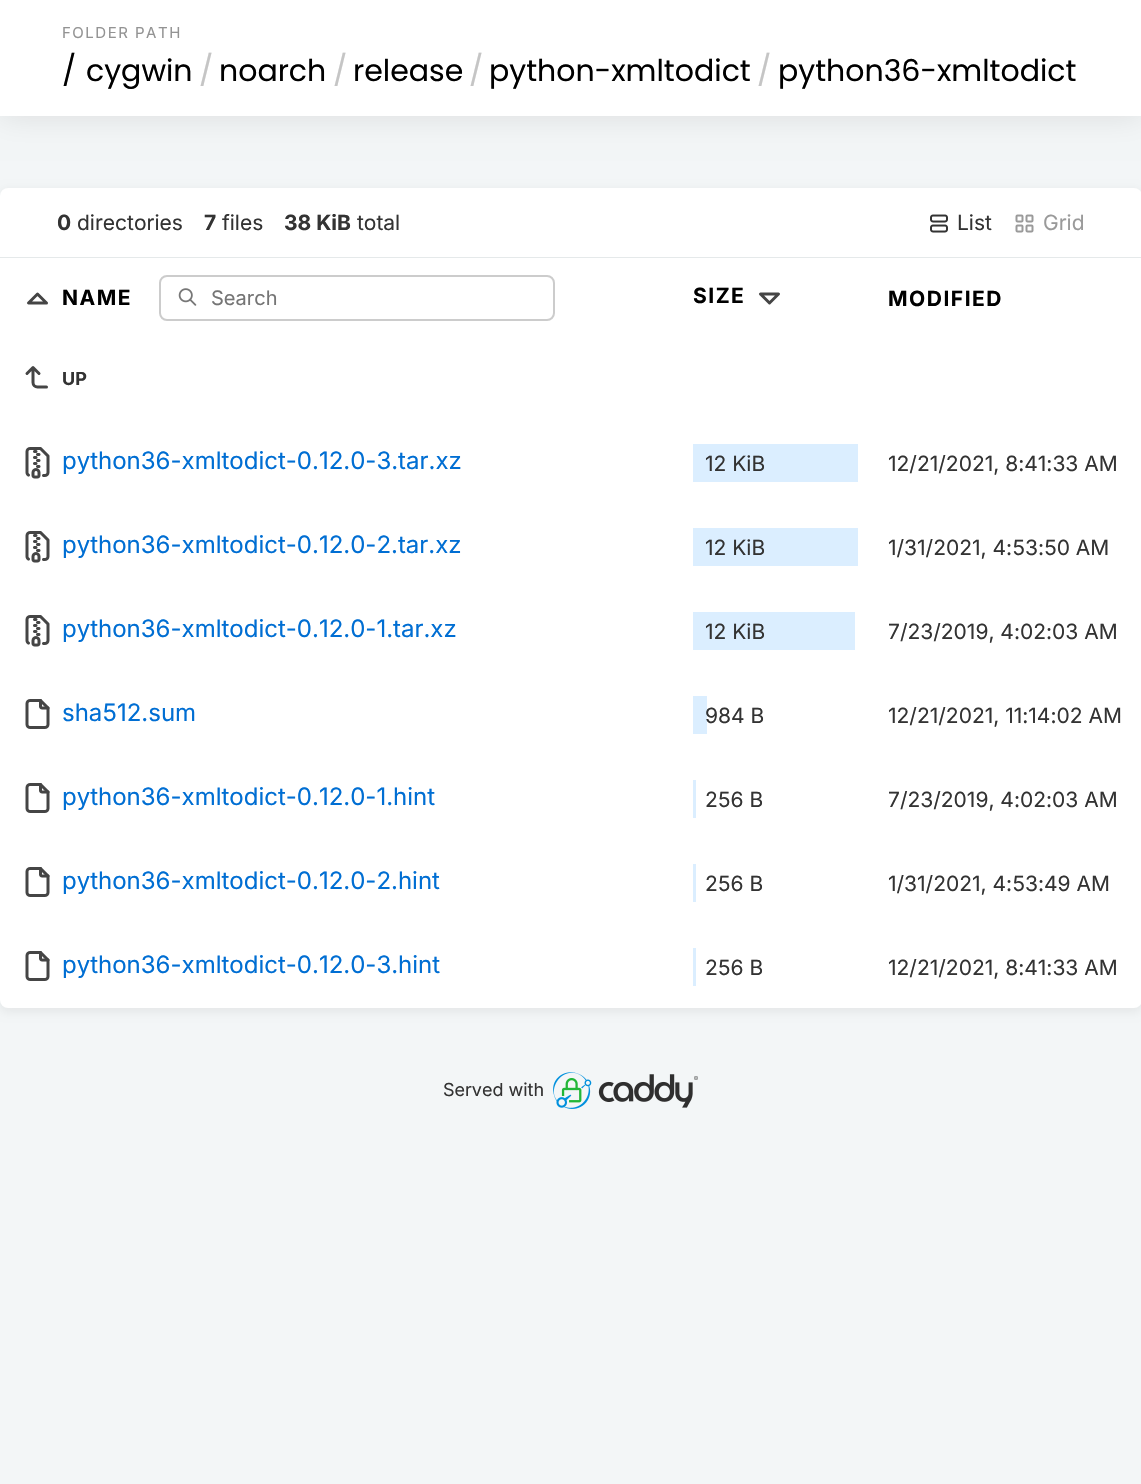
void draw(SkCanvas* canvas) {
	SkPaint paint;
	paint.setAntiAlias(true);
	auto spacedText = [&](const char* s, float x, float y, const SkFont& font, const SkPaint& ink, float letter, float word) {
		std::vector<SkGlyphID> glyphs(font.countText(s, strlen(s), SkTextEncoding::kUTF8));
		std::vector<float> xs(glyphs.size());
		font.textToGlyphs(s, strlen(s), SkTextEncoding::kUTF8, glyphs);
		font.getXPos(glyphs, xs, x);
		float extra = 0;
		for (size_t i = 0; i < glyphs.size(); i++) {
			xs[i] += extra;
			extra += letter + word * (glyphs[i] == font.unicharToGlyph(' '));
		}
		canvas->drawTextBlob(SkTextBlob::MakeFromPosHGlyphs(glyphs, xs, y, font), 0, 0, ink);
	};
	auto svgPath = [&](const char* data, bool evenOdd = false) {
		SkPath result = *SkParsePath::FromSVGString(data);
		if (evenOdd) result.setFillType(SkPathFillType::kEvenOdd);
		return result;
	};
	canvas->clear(0xfff3f6f7);
	paint.setColor(0x1a000000);
	paint.setMaskFilter(SkMaskFilter::MakeBlur(kNormal_SkBlurStyle, 15));
	canvas->drawRect(SkRect::MakeXYWH(0, 0, 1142, 116), paint);
	paint.setMaskFilter(nullptr);
	paint.setColor(0xffffffff);
	canvas->drawRect(SkRect::MakeXYWH(0, 0, 1141, 116), paint);
	SkFont f1(fontMgr->matchFamilyStyle("Inter", SkFontStyle::Normal()), 15);
	f1.setSubpixel(true);
	paint.setColor(0xff939393);
	spacedText("FOLDER PATH", 62, 38, f1, paint, 1.5, 0);
	SkFont f2(fontMgr->matchFamilyStyle("Poppins", SkFontStyle::Normal()), 30);
	f2.setSubpixel(true);
	paint.setColor(0xff000000);
	canvas->drawString("/", 62, 81, f2, paint);
	canvas->drawString("cygwin", 86, 81, f2, paint);
	paint.setColor(0xffc5c5c5);
	canvas->drawString("/", 199, 81, f2, paint);
	paint.setColor(0xff000000);
	canvas->drawString("noarch", 219, 81, f2, paint);
	paint.setColor(0xffc5c5c5);
	canvas->drawString("/", 333, 81, f2, paint);
	paint.setColor(0xff000000);
	canvas->drawString("release", 353, 81, f2, paint);
	paint.setColor(0xffc5c5c5);
	canvas->drawString("/", 469, 81, f2, paint);
	paint.setColor(0xff000000);
	canvas->drawString("python-xmltodict", 489, 81, f2, paint);
	paint.setColor(0xffc5c5c5);
	canvas->drawString("/", 757, 81, f2, paint);
	paint.setColor(0xff000000);
	canvas->drawString("python36-xmltodict", 778, 81, f2, paint);
	paint.setColor(0x0d000000);
	paint.setMaskFilter(SkMaskFilter::MakeBlur(kNormal_SkBlurStyle, 4));
	canvas->drawRoundRect(SkRect::MakeXYWH(-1, 189, 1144, 824), 9, 9, paint);
	paint.setMaskFilter(nullptr);
	paint.setColor(0xffffffff);
	canvas->drawRoundRect(SkRect::MakeXYWH(0, 188, 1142, 820), 8, 8, paint);
	paint.setColor(0xffe5e9ea);
	canvas->drawRect(SkRect::MakeXYWH(0, 257, 1141, 1), paint);
	SkFont f3(fontMgr->matchFamilyStyle("Inter", SkFontStyle::Bold()), 21);
	f3.setSubpixel(true);
	paint.setColor(0xff333333);
	canvas->drawString("0", 57, 230, f3, paint);
	SkFont f4(fontMgr->matchFamilyStyle("Inter", SkFontStyle::Normal()), 21);
	f4.setSubpixel(true);
	canvas->drawString("directories", 77, 230, f4, paint);
	canvas->drawString("7", 204, 230, f3, paint);
	canvas->drawString("files", 222, 230, f4, paint);
	canvas->drawString("38 KiB", 284, 230, f3, paint);
	canvas->drawString("total", 357, 230, f4, paint);
	canvas->drawImageRect(SkImages::DeferredFromEncodedData(SkData::MakeFromFileName("img1.png")), SkRect::MakeXYWH(930, 214, 18, 19), SkSamplingOptions());
	canvas->drawString("List", 957, 230, f4, paint);
	canvas->drawImageRect(SkImages::DeferredFromEncodedData(SkData::MakeFromFileName("img2.png")), SkRect::MakeXYWH(1015, 214, 19, 19), SkSamplingOptions());
	paint.setColor(0xff9a9a9a);
	canvas->drawString("Grid", 1043, 230, f4, paint);
	paint.setStroke(true);
	paint.setStrokeWidth(3);
	paint.setStrokeCap(SkPaint::kRound_Cap);
	paint.setStrokeJoin(SkPaint::kRound_Join);
	paint.setColor(0xff454545);
	canvas->drawPath(svgPath("M46.5 303L37.5 294L28.5 303H46.5"), paint);
	paint.setStroke(false);
	paint.setColor(0xff000000);
	spacedText("NAME", 62, 305, f3, paint, 1.5, 0);
	canvas->drawImageRect(SkImages::DeferredFromEncodedData(SkData::MakeFromFileName("img3.png")), SkRect::MakeXYWH(178, 288, 19, 18), SkSamplingOptions());
	paint.setStroke(true);
	paint.setStrokeWidth(2);
	paint.setStrokeCap(SkPaint::kButt_Cap);
	paint.setStrokeJoin(SkPaint::kMiter_Join);
	paint.setColor(0xffcccccc);
	canvas->drawRoundRect(SkRect::MakeXYWH(160, 276, 394, 44), 7, 7, paint);
	SkFont f5(fontMgr->matchFamilyStyle("Inter", SkFontStyle::Normal()), 20);
	f5.setSubpixel(true);
	paint.setStroke(false);
	paint.setColor(0xff757575);
	canvas->drawString("Search", 211, 305, f5, paint);
	paint.setColor(0xff000000);
	spacedText("SIZE", 693, 303, f3, paint, 1.5, 0);
	paint.setStroke(true);
	paint.setStrokeWidth(3);
	paint.setStrokeCap(SkPaint::kRound_Cap);
	paint.setStrokeJoin(SkPaint::kRound_Join);
	paint.setColor(0xff454545);
	canvas->drawPath(svgPath("M760.5 294L769.5 303L778.5 294H760.5"), paint);
	paint.setStroke(false);
	paint.setColor(0xff000000);
	spacedText("MODIFIED", 888, 306, f3, paint, 1.5, 0);
	paint.setStroke(true);
	paint.setColor(0xff454545);
	canvas->drawPath(svgPath("M46.5 387H37.5C35 387 33 385 33 382.5V367.5L27 373.5M39 373.5L33 367.5"), paint);
	SkFont f6(fontMgr->matchFamilyStyle("Inter", SkFontStyle::Bold()), 18);
	f6.setSubpixel(true);
	paint.setStroke(false);
	paint.setColor(0xff333333);
	canvas->drawString("UP", 62, 385, f6, paint);
	canvas->drawImageRect(SkImages::DeferredFromEncodedData(SkData::MakeFromFileName("img4.png")), SkRect::MakeXYWH(25, 447, 25, 32), SkSamplingOptions());
	SkFont f7(fontMgr->matchFamilyStyle("Inter", SkFontStyle::Normal()), 24);
	f7.setSubpixel(true);
	paint.setColor(0xff006ed3);
	canvas->drawString("python36-xmltodict-0.12.0-3.tar.xz", 62, 469, f7, paint);
	paint.setColor(0xffdbeeff);
	canvas->drawRect(SkRect::MakeXYWH(693, 444, 165, 38), paint);
	paint.setColor(0xff333333);
	canvas->drawString("12 KiB", 705, 471, f4, paint);
	canvas->drawString("12/21/2021, 8:41:33 AM", 888, 471, f4, paint);
	canvas->drawImageRect(SkImages::DeferredFromEncodedData(SkData::MakeFromFileName("img4.png")), SkRect::MakeXYWH(25, 531, 25, 32), SkSamplingOptions());
	paint.setColor(0xff006ed3);
	canvas->drawString("python36-xmltodict-0.12.0-2.tar.xz", 62, 553, f7, paint);
	paint.setColor(0xffdbeeff);
	canvas->drawRect(SkRect::MakeXYWH(693, 528, 165, 38), paint);
	paint.setColor(0xff333333);
	canvas->drawString("12 KiB", 705, 555, f4, paint);
	canvas->drawString("1/31/2021, 4:53:50 AM", 888, 555, f4, paint);
	canvas->drawImageRect(SkImages::DeferredFromEncodedData(SkData::MakeFromFileName("img4.png")), SkRect::MakeXYWH(25, 615, 25, 32), SkSamplingOptions());
	paint.setColor(0xff006ed3);
	canvas->drawString("python36-xmltodict-0.12.0-1.tar.xz", 62, 637, f7, paint);
	paint.setColor(0xffdbeeff);
	canvas->drawRect(SkRect::MakeXYWH(693, 612, 162, 38), paint);
	paint.setColor(0xff333333);
	canvas->drawString("12 KiB", 705, 639, f4, paint);
	canvas->drawString("7/23/2019, 4:02:03 AM", 888, 639, f4, paint);
	canvas->drawImageRect(SkImages::DeferredFromEncodedData(SkData::MakeFromFileName("img5.png")), SkRect::MakeXYWH(25, 699, 25, 30), SkSamplingOptions());
	paint.setColor(0xff006ed3);
	canvas->drawString("sha512.sum", 62, 721, f7, paint);
	paint.setColor(0xffdbeeff);
	canvas->drawRect(SkRect::MakeXYWH(693, 696, 14, 38), paint);
	paint.setColor(0xff333333);
	canvas->drawString("984 B", 705, 723, f4, paint);
	canvas->drawString("12/21/2021, 11:14:02 AM", 888, 723, f4, paint);
	canvas->drawImageRect(SkImages::DeferredFromEncodedData(SkData::MakeFromFileName("img5.png")), SkRect::MakeXYWH(25, 783, 25, 30), SkSamplingOptions());
	paint.setColor(0xff006ed3);
	canvas->drawString("python36-xmltodict-0.12.0-1.hint", 62, 805, f7, paint);
	paint.setColor(0xffdbeeff);
	canvas->drawRect(SkRect::MakeXYWH(693, 780, 3, 38), paint);
	paint.setColor(0xff333333);
	canvas->drawString("256 B", 705, 807, f4, paint);
	canvas->drawString("7/23/2019, 4:02:03 AM", 888, 807, f4, paint);
	canvas->drawImageRect(SkImages::DeferredFromEncodedData(SkData::MakeFromFileName("img5.png")), SkRect::MakeXYWH(25, 867, 25, 30), SkSamplingOptions());
	paint.setColor(0xff006ed3);
	canvas->drawString("python36-xmltodict-0.12.0-2.hint", 62, 889, f7, paint);
	paint.setColor(0xffdbeeff);
	canvas->drawRect(SkRect::MakeXYWH(693, 864, 3, 38), paint);
	paint.setColor(0xff333333);
	canvas->drawString("256 B", 705, 891, f4, paint);
	canvas->drawString("1/31/2021, 4:53:49 AM", 888, 891, f4, paint);
	canvas->drawImageRect(SkImages::DeferredFromEncodedData(SkData::MakeFromFileName("img5.png")), SkRect::MakeXYWH(25, 951, 25, 30), SkSamplingOptions());
	paint.setColor(0xff006ed3);
	canvas->drawString("python36-xmltodict-0.12.0-3.hint", 62, 973, f7, paint);
	paint.setColor(0xffdbeeff);
	canvas->drawRect(SkRect::MakeXYWH(693, 948, 3, 38), paint);
	paint.setColor(0xff333333);
	canvas->drawString("256 B", 705, 975, f4, paint);
	canvas->drawString("12/21/2021, 8:41:33 AM", 888, 975, f4, paint);
	SkFont f8(fontMgr->matchFamilyStyle("Inter", SkFontStyle::Normal()), 18);
	f8.setSubpixel(true);
	canvas->drawString("Served with", 443, 1096, f8, paint);
	canvas->drawImageRect(SkImages::DeferredFromEncodedData(SkData::MakeFromFileName("img6.png")), SkRect::MakeXYWH(553, 1072, 145, 37), SkSamplingOptions());
}
